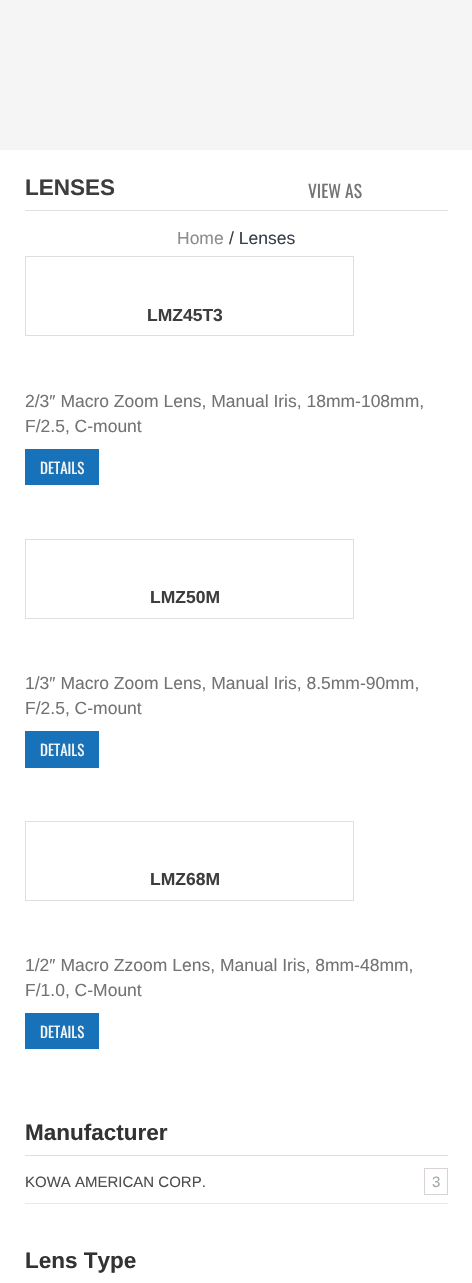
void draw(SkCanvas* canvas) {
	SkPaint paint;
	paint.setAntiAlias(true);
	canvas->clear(0xffffffff);
	paint.setColor(0xfff5f5f5);
	canvas->drawRect(SkRect::MakeXYWH(0, 0, 472, 150), paint);
	SkFont f1(fontMgr->matchFamilyStyle("Liberation Sans", SkFontStyle::Bold()), 22.5);
	f1.setSubpixel(true);
	paint.setColor(0xff3e3d3d);
	canvas->drawString("LENSES", 25, 195, f1, paint);
	paint.setColor(0xffe0dfdf);
	canvas->drawRect(SkRect::MakeXYWH(25, 210, 423, 1), paint);
	SkFont f2(fontMgr->matchFamilyStyle("Oswald", SkFontStyle::Normal()), 17.5);
	f2.setSubpixel(true);
	paint.setColor(0xff747373);
	canvas->drawString("VIEW AS", 308, 198, f2, paint);
	SkFont f3(fontMgr->matchFamilyStyle("Liberation Sans", SkFontStyle::Normal()), 17.5);
	f3.setSubpixel(true);
	paint.setColor(0xff8d8d8d);
	canvas->drawString("Home", 177, 244, f3, paint);
	paint.setColor(0xff363f4a);
	canvas->drawString("/ Lenses", 229, 244, f3, paint);
	paint.setStroke(true);
	paint.setStrokeWidth(1);
	paint.setColor(0xffe0dfdf);
	canvas->drawRect(SkRect::MakeXYWH(25.5, 256.5, 328, 79), paint);
	SkFont f4(fontMgr->matchFamilyStyle("Liberation Sans", SkFontStyle::Bold()), 17.5);
	f4.setSubpixel(true);
	paint.setStroke(false);
	paint.setColor(0xff3e3d3d);
	canvas->drawString("LMZ45T3", 147, 321, f4, paint);
	paint.setColor(0xff747373);
	canvas->drawString("2/3″ Macro Zoom Lens, Manual Iris, 18mm-108mm,", 25, 407, f3, paint);
	canvas->drawString("F/2.5, C-mount", 25, 432, f3, paint);
	paint.setColor(0xff1772b9);
	canvas->drawRect(SkRect::MakeXYWH(25, 449, 74, 36), paint);
	SkFont f5(fontMgr->matchFamilyStyle("Oswald", SkFontStyle::Normal()), 15);
	f5.setSubpixel(true);
	paint.setColor(0xfff7f7f7);
	canvas->drawString("DETAILS", 40, 474, f5, paint);
	paint.setStroke(true);
	paint.setColor(0xffe0dfdf);
	canvas->drawRect(SkRect::MakeXYWH(25.5, 539.5, 328, 79), paint);
	paint.setStroke(false);
	paint.setColor(0xff3e3d3d);
	canvas->drawString("LMZ50M", 150, 603, f4, paint);
	paint.setColor(0xff747373);
	canvas->drawString("1/3″ Macro Zoom Lens, Manual Iris, 8.5mm-90mm,", 25, 689, f3, paint);
	canvas->drawString("F/2.5, C-mount", 25, 714, f3, paint);
	paint.setColor(0xff1772b9);
	canvas->drawRect(SkRect::MakeXYWH(25, 731, 74, 37), paint);
	paint.setColor(0xfff7f7f7);
	canvas->drawString("DETAILS", 40, 756, f5, paint);
	paint.setStroke(true);
	paint.setColor(0xffe0dfdf);
	canvas->drawRect(SkRect::MakeXYWH(25.5, 821.5, 328, 79), paint);
	paint.setStroke(false);
	paint.setColor(0xff3e3d3d);
	canvas->drawString("LMZ68M", 150, 885, f4, paint);
	paint.setColor(0xff747373);
	canvas->drawString("1/2″ Macro Zzoom Lens, Manual Iris, 8mm-48mm,", 25, 971, f3, paint);
	canvas->drawString("F/1.0, C-Mount", 25, 996, f3, paint);
	paint.setColor(0xff1772b9);
	canvas->drawRect(SkRect::MakeXYWH(25, 1013, 74, 36), paint);
	paint.setColor(0xfff7f7f7);
	canvas->drawString("DETAILS", 40, 1038, f5, paint);
	paint.setColor(0xffe0dfdf);
	canvas->drawRect(SkRect::MakeXYWH(25, 1155, 423, 1), paint);
	paint.setColor(0xff333333);
	canvas->drawString("Manufacturer", 25, 1140, f1, paint);
	paint.setColor(0xffeae9e9);
	canvas->drawRect(SkRect::MakeXYWH(25, 1203, 423, 1), paint);
	SkFont f6(fontMgr->matchFamilyStyle("Liberation Sans", SkFontStyle::Normal()), 15);
	f6.setSubpixel(true);
	paint.setColor(0xff4f4d4d);
	canvas->drawString("KOWA AMERICAN CORP.", 25, 1187, f6, paint);
	paint.setStroke(true);
	paint.setColor(0xffd9d3d3);
	canvas->drawRect(SkRect::MakeXYWH(424.5, 1168.5, 23, 26), paint);
	paint.setStroke(false);
	paint.setColor(0xffa6a6a6);
	canvas->drawString("3", 432, 1187, f6, paint);
	paint.setColor(0xff333333);
	canvas->drawString("Lens Type", 25, 1268, f1, paint);
}
